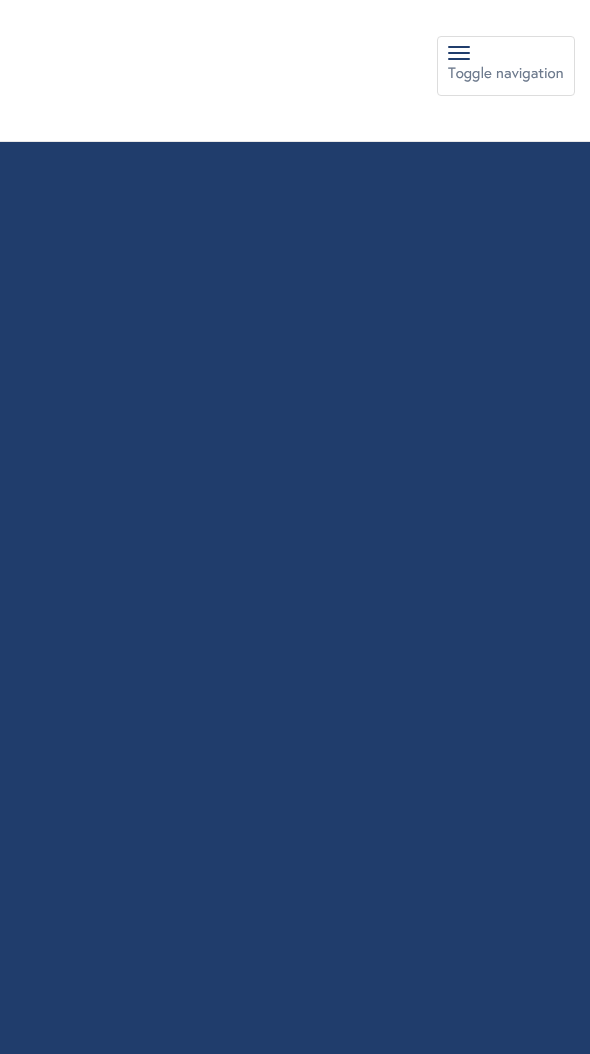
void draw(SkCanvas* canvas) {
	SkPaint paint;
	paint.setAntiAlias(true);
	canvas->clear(0xff203d6c);
	paint.setColor(0xffe7e7e7);
	canvas->drawRect(SkRect::MakeXYWH(0, 141, 590, 1), paint);
	paint.setColor(0xffffffff);
	canvas->drawRect(SkRect::MakeXYWH(0, 0, 590, 141), paint);
	paint.setStroke(true);
	paint.setStrokeWidth(1);
	paint.setColor(0xffdddddd);
	canvas->drawRoundRect(SkRect::MakeXYWH(437.5, 36.5, 137, 59), 3.5, 3.5, paint);
	paint.setStroke(false);
	paint.setColor(0xff203d6c);
	canvas->drawRoundRect(SkRect::MakeXYWH(448, 46, 22, 2), 1, 1, paint);
	canvas->drawRoundRect(SkRect::MakeXYWH(448, 52, 22, 2), 1, 1, paint);
	canvas->drawRoundRect(SkRect::MakeXYWH(448, 58, 22, 2), 1, 1, paint);
	SkFont f1(fontMgr->matchFamilyStyle("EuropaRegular", SkFontStyle::Normal()), 15);
	f1.setSubpixel(true);
	paint.setColor(0xff6d7a8d);
	canvas->drawString("Toggle navigation", 448, 78, f1, paint);
}
